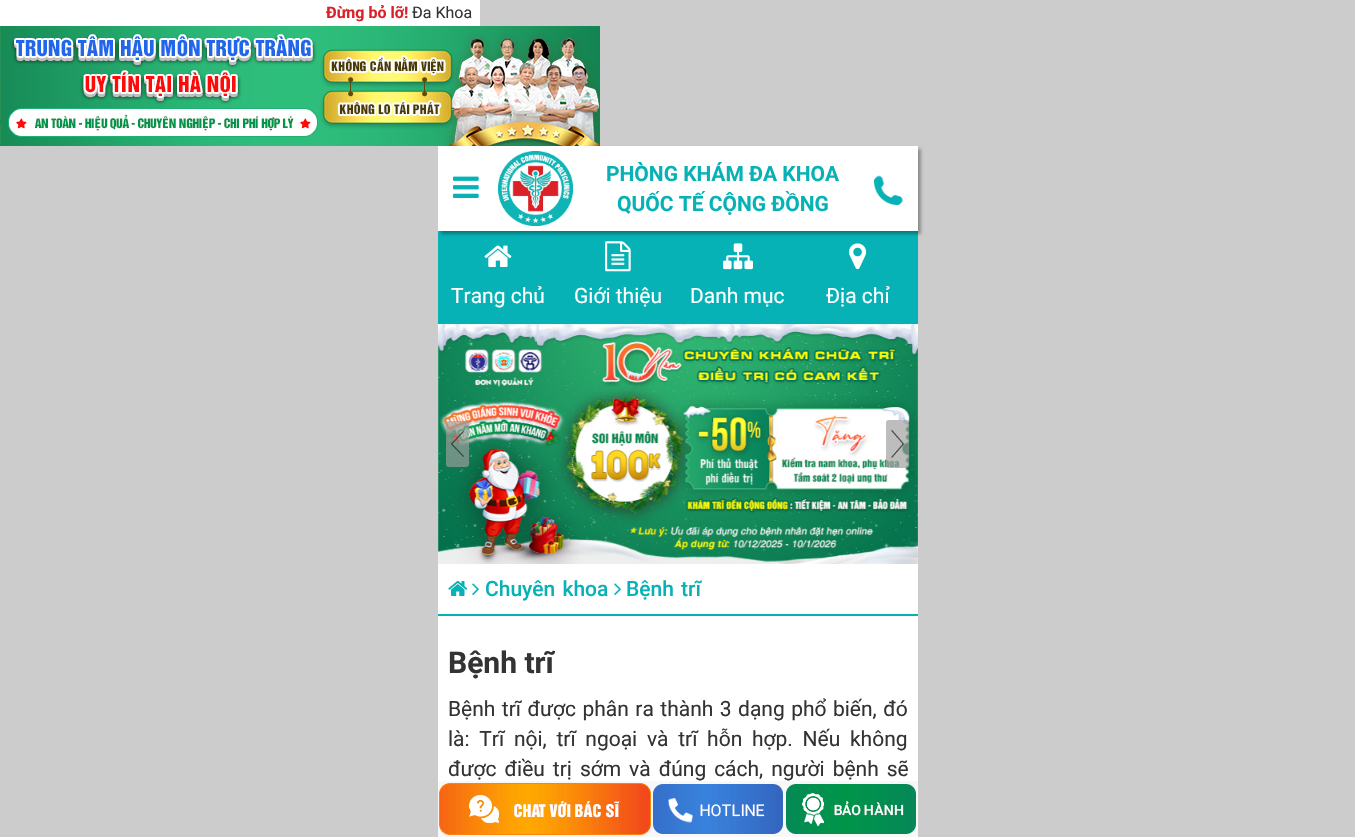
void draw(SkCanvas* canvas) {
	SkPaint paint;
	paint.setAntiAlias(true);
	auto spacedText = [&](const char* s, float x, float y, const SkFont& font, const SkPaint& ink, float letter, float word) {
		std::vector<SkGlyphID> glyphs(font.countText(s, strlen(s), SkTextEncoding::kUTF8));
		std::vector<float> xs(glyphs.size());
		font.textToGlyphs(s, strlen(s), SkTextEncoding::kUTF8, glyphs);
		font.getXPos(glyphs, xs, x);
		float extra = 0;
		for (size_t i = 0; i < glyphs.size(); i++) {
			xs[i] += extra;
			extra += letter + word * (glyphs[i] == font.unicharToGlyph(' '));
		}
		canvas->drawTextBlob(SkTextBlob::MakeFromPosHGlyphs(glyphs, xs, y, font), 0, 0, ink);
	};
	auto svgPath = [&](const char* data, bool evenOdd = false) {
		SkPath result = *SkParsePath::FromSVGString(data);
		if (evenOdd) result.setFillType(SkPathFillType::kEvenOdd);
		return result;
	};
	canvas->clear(0xffcccccc);
	paint.setColor(0xffffffff);
	canvas->drawRect(SkRect::MakeXYWH(0, 0, 480, 26), paint);
	SkFont f1(fontMgr->matchFamilyStyle("Roboto", SkFontStyle::Bold()), 16);
	f1.setSubpixel(true);
	paint.setColor(0xffda2129);
	canvas->drawString("Đừng bỏ lỡ!", 326, 18, f1, paint);
	SkFont f2(fontMgr->matchFamilyStyle("Roboto", SkFontStyle::Normal()), 16);
	f2.setSubpixel(true);
	paint.setColor(0xff333333);
	canvas->drawString("Đa Khoa", 412, 18, f2, paint);
	canvas->drawImageRect(SkImages::DeferredFromEncodedData(SkData::MakeFromFileName("img1.png")), SkRect::MakeXYWH(0, 26, 600, 120), SkSamplingOptions());
	paint.setColor(0xffffffff);
	canvas->drawRect(SkRect::MakeXYWH(438, 146, 480, 85), paint);
	paint.setColor(0xff06b2b6);
	canvas->drawRect(SkRect::MakeXYWH(438, 231, 480, 93), paint);
	canvas->save();
	canvas->clipPath(svgPath("M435 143H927V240H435ZM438 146H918V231H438Z", true), true);
	paint.setColor(0x4d000000);
	paint.setMaskFilter(SkMaskFilter::MakeBlur(kNormal_SkBlurStyle, 1.5));
	canvas->drawRect(SkRect::MakeXYWH(441, 149, 480, 85), paint);
	paint.setMaskFilter(nullptr);
	canvas->restore();
	canvas->drawImageRect(SkImages::DeferredFromEncodedData(SkData::MakeFromFileName("img2.png")), SkRect::MakeXYWH(453, 176, 26, 22), SkSamplingOptions());
	canvas->drawImageRect(SkImages::DeferredFromEncodedData(SkData::MakeFromFileName("img3.png")), SkRect::MakeXYWH(498, 151, 75, 75), SkSamplingOptions());
	SkFont f3(fontMgr->matchFamilyStyle("Roboto", SkFontStyle::Bold()), 21);
	f3.setSubpixel(true);
	paint.setColor(0xff06b2b6);
	canvas->drawString("PHÒNG KHÁM ĐA KHOA", 606, 181, f3, paint);
	canvas->drawString("QUỐC TẾ CỘNG ĐỒNG", 617, 211, f3, paint);
	canvas->drawImageRect(SkImages::DeferredFromEncodedData(SkData::MakeFromFileName("img4.png")), SkRect::MakeXYWH(873, 175, 30, 30), SkSamplingOptions());
	canvas->drawImageRect(SkImages::DeferredFromEncodedData(SkData::MakeFromFileName("img5.png")), SkRect::MakeXYWH(484, 245, 28, 22), SkSamplingOptions());
	SkFont f4(fontMgr->matchFamilyStyle("Roboto", SkFontStyle::Normal()), 21);
	f4.setSubpixel(true);
	paint.setColor(0xffffffff);
	canvas->drawString("Trang chủ", 451, 303, f4, paint);
	canvas->drawImageRect(SkImages::DeferredFromEncodedData(SkData::MakeFromFileName("img6.png")), SkRect::MakeXYWH(605, 241, 26, 31), SkSamplingOptions());
	canvas->drawString("Giới thiệu", 574, 303, f4, paint);
	canvas->drawImageRect(SkImages::DeferredFromEncodedData(SkData::MakeFromFileName("img7.png")), SkRect::MakeXYWH(723, 243, 30, 27), SkSamplingOptions());
	canvas->drawString("Danh mục", 690, 303, f4, paint);
	canvas->drawImageRect(SkImages::DeferredFromEncodedData(SkData::MakeFromFileName("img8.png")), SkRect::MakeXYWH(849, 243, 18, 27), SkSamplingOptions());
	canvas->drawString("Địa chỉ", 826, 303, f4, paint);
	canvas->drawRect(SkRect::MakeXYWH(438, 324, 480, 457), paint);
	canvas->drawImageRect(SkImages::DeferredFromEncodedData(SkData::MakeFromFileName("img9.png")), SkRect::MakeXYWH(438, 324, 480, 240), SkSamplingOptions());
	paint.setColor(0xab9d9d9d);
	canvas->drawRoundRect(SkRect::MakeXYWH(446, 421, 23, 46), 3, 3, paint);
	canvas->drawImageRect(SkImages::DeferredFromEncodedData(SkData::MakeFromFileName("img10.png")), SkRect::MakeXYWH(451, 431, 13, 26), SkSamplingOptions());
	canvas->drawRoundRect(SkRect::MakeXYWH(886, 420, 23, 48), 3, 3, paint);
	canvas->drawImageRect(SkImages::DeferredFromEncodedData(SkData::MakeFromFileName("img11.png")), SkRect::MakeXYWH(891, 430, 13, 28), SkSamplingOptions());
	paint.setColor(0xff06b2b6);
	canvas->drawRect(SkRect::MakeXYWH(438, 614, 480, 2), paint);
	canvas->drawImageRect(SkImages::DeferredFromEncodedData(SkData::MakeFromFileName("img12.png")), SkRect::MakeXYWH(448, 581, 20, 15), SkSamplingOptions());
	canvas->drawImageRect(SkImages::DeferredFromEncodedData(SkData::MakeFromFileName("img13.png")), SkRect::MakeXYWH(472, 583, 7, 12), SkSamplingOptions());
	SkFont f5(fontMgr->matchFamilyStyle("Roboto", SkFontStyle(500, SkFontStyle::kNormal_Width, SkFontStyle::kUpright_Slant)), 21);
	f5.setSubpixel(true);
	spacedText("Chuyên khoa", 485, 596, f5, paint, 0, 2);
	canvas->drawImageRect(SkImages::DeferredFromEncodedData(SkData::MakeFromFileName("img13.png")), SkRect::MakeXYWH(614, 583, 7, 12), SkSamplingOptions());
	spacedText("Bệnh trĩ", 626, 596, f5, paint, 0, 2);
	SkFont f6(fontMgr->matchFamilyStyle("Roboto", SkFontStyle::Bold()), 30);
	f6.setSubpixel(true);
	paint.setColor(0xff333333);
	canvas->drawString("Bệnh trĩ", 448, 673, f6, paint);
	spacedText("Bệnh trĩ được phân ra thành 3 dạng phổ biến, đó", 448, 716, f4, paint, 0, 1.25);
	spacedText("là: Trĩ nội, trĩ ngoại và trĩ hỗn hợp. Nếu không", 448, 746, f4, paint, 0, 4.5);
	spacedText("được điều trị sớm và đúng cách, người bệnh sẽ", 448, 776, f4, paint, 0, 2.75);
	canvas->drawImageRect(SkImages::DeferredFromEncodedData(SkData::MakeFromFileName("img14.png")), SkRect::MakeXYWH(438, 781, 480, 56), SkSamplingOptions());
}
